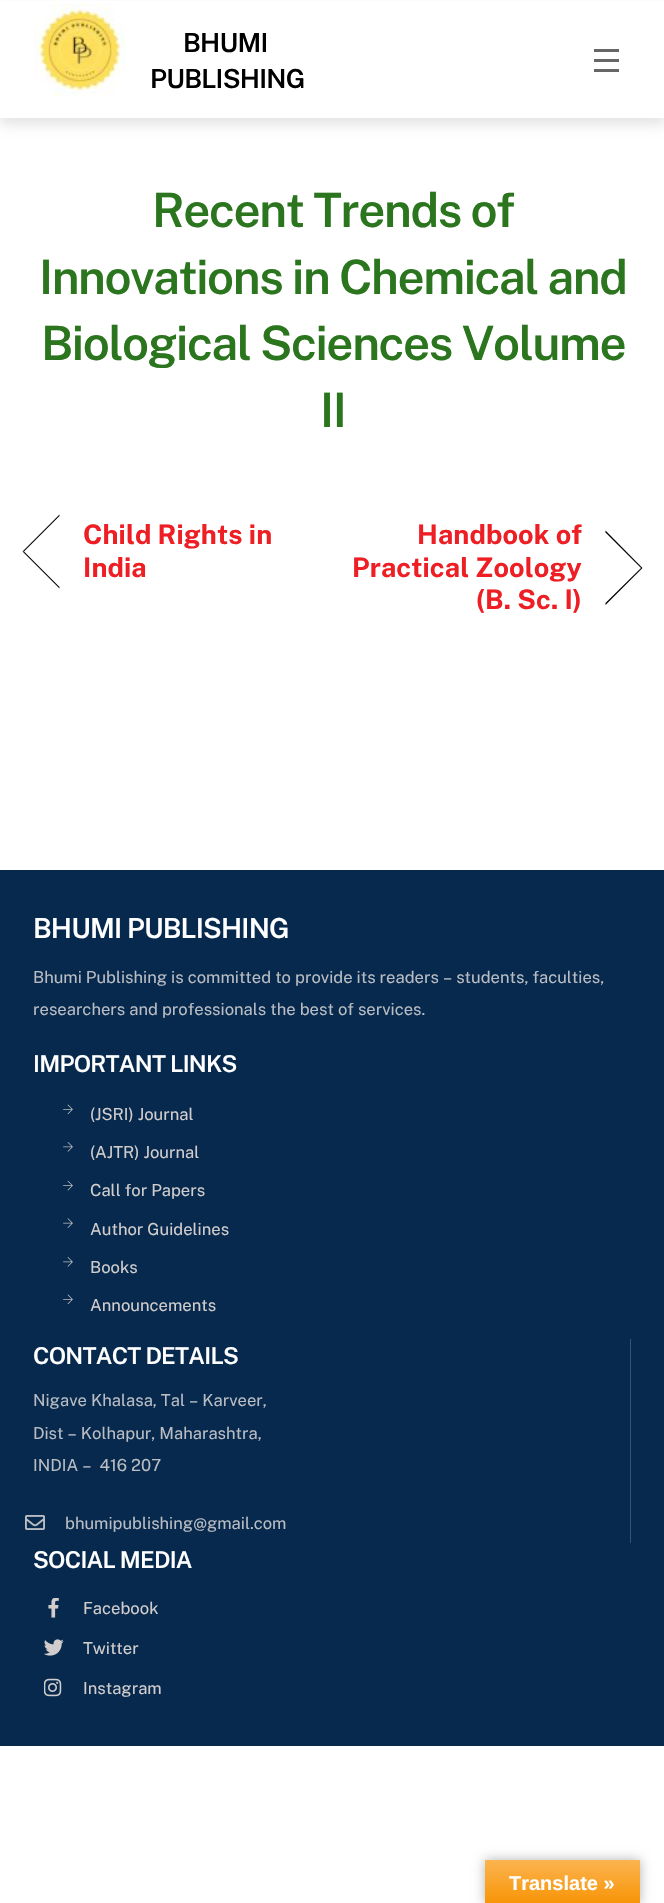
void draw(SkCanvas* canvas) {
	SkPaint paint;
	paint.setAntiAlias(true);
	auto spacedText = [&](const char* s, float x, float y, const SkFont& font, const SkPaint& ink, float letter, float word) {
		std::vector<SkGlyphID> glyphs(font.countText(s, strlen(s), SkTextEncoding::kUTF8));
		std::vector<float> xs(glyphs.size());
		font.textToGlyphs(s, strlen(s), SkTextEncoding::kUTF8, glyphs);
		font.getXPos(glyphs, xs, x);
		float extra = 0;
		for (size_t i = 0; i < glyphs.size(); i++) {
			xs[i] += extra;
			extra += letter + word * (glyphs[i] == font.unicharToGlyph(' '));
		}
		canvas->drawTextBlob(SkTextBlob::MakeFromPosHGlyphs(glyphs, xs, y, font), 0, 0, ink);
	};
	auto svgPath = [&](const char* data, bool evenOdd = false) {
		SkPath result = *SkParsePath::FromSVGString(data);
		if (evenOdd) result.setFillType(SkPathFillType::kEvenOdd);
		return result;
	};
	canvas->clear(0xffffffff);
	paint.setColor(0x1a000000);
	paint.setMaskFilter(SkMaskFilter::MakeBlur(kNormal_SkBlurStyle, 5.5));
	canvas->drawRect(SkRect::MakeXYWH(0, 8, 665, 117), paint);
	paint.setMaskFilter(nullptr);
	paint.setColor(0xffffffff);
	canvas->drawRect(SkRect::MakeXYWH(0, 1, 664, 117), paint);
	canvas->drawImageRect(SkImages::DeferredFromEncodedData(SkData::MakeFromFileName("img1.png")), SkRect::MakeXYWH(34, 3, 92, 93), SkSamplingOptions());
	SkFont f1(fontMgr->matchFamilyStyle("Public Sans", SkFontStyle(600, SkFontStyle::kNormal_Width, SkFontStyle::kUpright_Slant)), 26.25);
	f1.setSubpixel(true);
	paint.setColor(0xff000000);
	spacedText("BHUMI", 183, 52, f1, paint, -0.75, 0);
	spacedText("PUBLISHING", 150, 88, f1, paint, -0.75, 0);
	paint.setColor(0xff666666);
	canvas->drawRect(SkRect::MakeXYWH(594, 69, 25, 3), paint);
	canvas->drawRect(SkRect::MakeXYWH(594, 49, 25, 3), paint);
	canvas->drawRect(SkRect::MakeXYWH(594, 59, 25, 3), paint);
	SkFont f2(fontMgr->matchFamilyStyle("Public Sans", SkFontStyle(600, SkFontStyle::kNormal_Width, SkFontStyle::kUpright_Slant)), 47.5);
	f2.setSubpixel(true);
	paint.setColor(0xff2b751e);
	spacedText("Recent Trends of", 152, 227, f2, paint, -1.4, 0);
	spacedText("Innovations in Chemical and", 39, 294, f2, paint, -1.4, 0);
	spacedText("Biological Sciences Volume", 41, 360, f2, paint, -1.4, 0);
	spacedText("II", 320, 427, f2, paint, -1.4, 0);
	paint.setColor(0xff000000);
	canvas->drawPath(svgPath("M59.5 588.5L22.5 551.5H24L59.5 587Z"), paint);
	canvas->drawPath(svgPath("M22.5 551.5L59.5 514.5V516L24 551.5Z"), paint);
	SkFont f3(fontMgr->matchFamilyStyle("Public Sans", SkFontStyle::Bold()), 27);
	f3.setSubpixel(true);
	paint.setColor(0xffed1e24);
	spacedText("Child Rights in", 83, 544, f3, paint, 0.1, 0);
	spacedText("India", 83, 577, f3, paint, 0.1, 0);
	spacedText("Handbook of", 417, 544, f3, paint, 0.1, 0);
	paint.setColor(0xff000000);
	canvas->drawPath(svgPath("M605.5 530.5L642.5 568H641L605.5 532.5Z"), paint);
	canvas->drawPath(svgPath("M642.5 568L605.5 605V603L641 568Z"), paint);
	paint.setColor(0xffed1e24);
	spacedText("Practical Zoology", 352, 577, f3, paint, 0.1, 0);
	spacedText("(B. Sc. I)", 476, 609, f3, paint, 0.1, 0);
	paint.setColor(0xff07294d);
	canvas->drawRect(SkRect::MakeXYWH(0, 870, 664, 876), paint);
	SkFont f4(fontMgr->matchFamilyStyle("Public Sans", SkFontStyle(600, SkFontStyle::kNormal_Width, SkFontStyle::kUpright_Slant)), 27.5);
	f4.setSubpixel(true);
	paint.setColor(0xffffffff);
	spacedText("BHUMI PUBLISHING", 33, 938, f4, paint, -0.8, 0);
	SkFont f5(fontMgr->matchFamilyStyle("Public Sans", SkFontStyle::Normal()), 16.6);
	f5.setSubpixel(true);
	paint.setColor(0xffb9bdc3);
	canvas->drawString("Bhumi Publishing is committed to provide its readers – students, faculties,", 33, 983, f5, paint);
	canvas->drawString("researchers and professionals the best of services.", 33, 1015, f5, paint);
	SkFont f6(fontMgr->matchFamilyStyle("Public Sans", SkFontStyle(600, SkFontStyle::kNormal_Width, SkFontStyle::kUpright_Slant)), 23.25);
	f6.setSubpixel(true);
	paint.setColor(0xffffffff);
	spacedText("IMPORTANT LINKS", 33, 1072, f6, paint, -0.75, 0);
	canvas->drawImageRect(SkImages::DeferredFromEncodedData(SkData::MakeFromFileName("img2.png")), SkRect::MakeXYWH(63, 1104, 10, 11), SkSamplingOptions());
	paint.setColor(0xffd1cdcd);
	canvas->drawString("(JSRI) Journal", 90, 1120, f5, paint);
	canvas->drawImageRect(SkImages::DeferredFromEncodedData(SkData::MakeFromFileName("img3.png")), SkRect::MakeXYWH(63, 1142, 10, 10), SkSamplingOptions());
	canvas->drawString("(AJTR) Journal", 90, 1158, f5, paint);
	canvas->drawImageRect(SkImages::DeferredFromEncodedData(SkData::MakeFromFileName("img4.png")), SkRect::MakeXYWH(63, 1180, 10, 11), SkSamplingOptions());
	canvas->drawString("Call for Papers", 90, 1196, f5, paint);
	canvas->drawImageRect(SkImages::DeferredFromEncodedData(SkData::MakeFromFileName("img5.png")), SkRect::MakeXYWH(63, 1218, 10, 10), SkSamplingOptions());
	canvas->drawString("Author Guidelines", 90, 1235, f5, paint);
	canvas->drawImageRect(SkImages::DeferredFromEncodedData(SkData::MakeFromFileName("img3.png")), SkRect::MakeXYWH(63, 1257, 10, 10), SkSamplingOptions());
	canvas->drawString("Books", 90, 1273, f5, paint);
	canvas->drawImageRect(SkImages::DeferredFromEncodedData(SkData::MakeFromFileName("img2.png")), SkRect::MakeXYWH(63, 1294, 10, 11), SkSamplingOptions());
	canvas->drawString("Announcements", 90, 1311, f5, paint);
	paint.setColor(0xff395471);
	canvas->drawRect(SkRect::MakeXYWH(630, 1339, 1, 204), paint);
	paint.setColor(0xffffffff);
	spacedText("CONTACT DETAILS", 33, 1364, f6, paint, -0.75, 0);
	paint.setColor(0xffb9bdc3);
	canvas->drawString("Nigave Khalasa, Tal – Karveer,", 33, 1406, f5, paint);
	canvas->drawString("Dist – Kolhapur, Maharashtra,", 33, 1439, f5, paint);
	canvas->drawString("INDIA –  416 207", 33, 1471, f5, paint);
	canvas->drawImageRect(SkImages::DeferredFromEncodedData(SkData::MakeFromFileName("img6.png")), SkRect::MakeXYWH(25, 1515, 20, 15), SkSamplingOptions());
	canvas->drawString("bhumipublishing@gmail.com", 65, 1529, f5, paint);
	paint.setColor(0xffffffff);
	spacedText("SOCIAL MEDIA", 33, 1568, f6, paint, -0.75, 0);
	canvas->drawImageRect(SkImages::DeferredFromEncodedData(SkData::MakeFromFileName("img7.png")), SkRect::MakeXYWH(48, 1598, 11, 20), SkSamplingOptions());
	paint.setColor(0xffd1cdcd);
	canvas->drawString("Facebook", 83, 1614, f5, paint);
	canvas->drawImageRect(SkImages::DeferredFromEncodedData(SkData::MakeFromFileName("img8.png")), SkRect::MakeXYWH(44, 1639, 20, 17), SkSamplingOptions());
	canvas->drawString("Twitter", 83, 1654, f5, paint);
	canvas->drawImageRect(SkImages::DeferredFromEncodedData(SkData::MakeFromFileName("img9.png")), SkRect::MakeXYWH(44, 1678, 18, 19), SkSamplingOptions());
	canvas->drawString("Instagram", 83, 1694, f5, paint);
	paint.setColor(0x4d000000);
	paint.setMaskFilter(SkMaskFilter::MakeBlur(kNormal_SkBlurStyle, 5.5));
	canvas->drawRect(SkRect::MakeXYWH(485, 1860, 155, 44), paint);
	paint.setMaskFilter(nullptr);
	{
		const SkColor colors[] = {0xfffbb450, 0xfff89406};
		const float stops[] = {0, 1};
		const SkPoint ends[] = {{563, 1860}, {563, 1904}};
		paint.setShader(SkGradientShader::MakeLinear(ends, colors, stops, 2, SkTileMode::kClamp));
		paint.setAlpha(255);
	}
	canvas->drawRect(SkRect::MakeXYWH(485, 1860, 155, 43), paint);
	SkFont f7(fontMgr->matchFamilyStyle("Liberation Sans", SkFontStyle::Bold()), 20);
	f7.setSubpixel(true);
	paint.setShader(nullptr);
	paint.setColor(0xffffffff);
	canvas->drawString("Translate »", 509, 1890, f7, paint);
}
